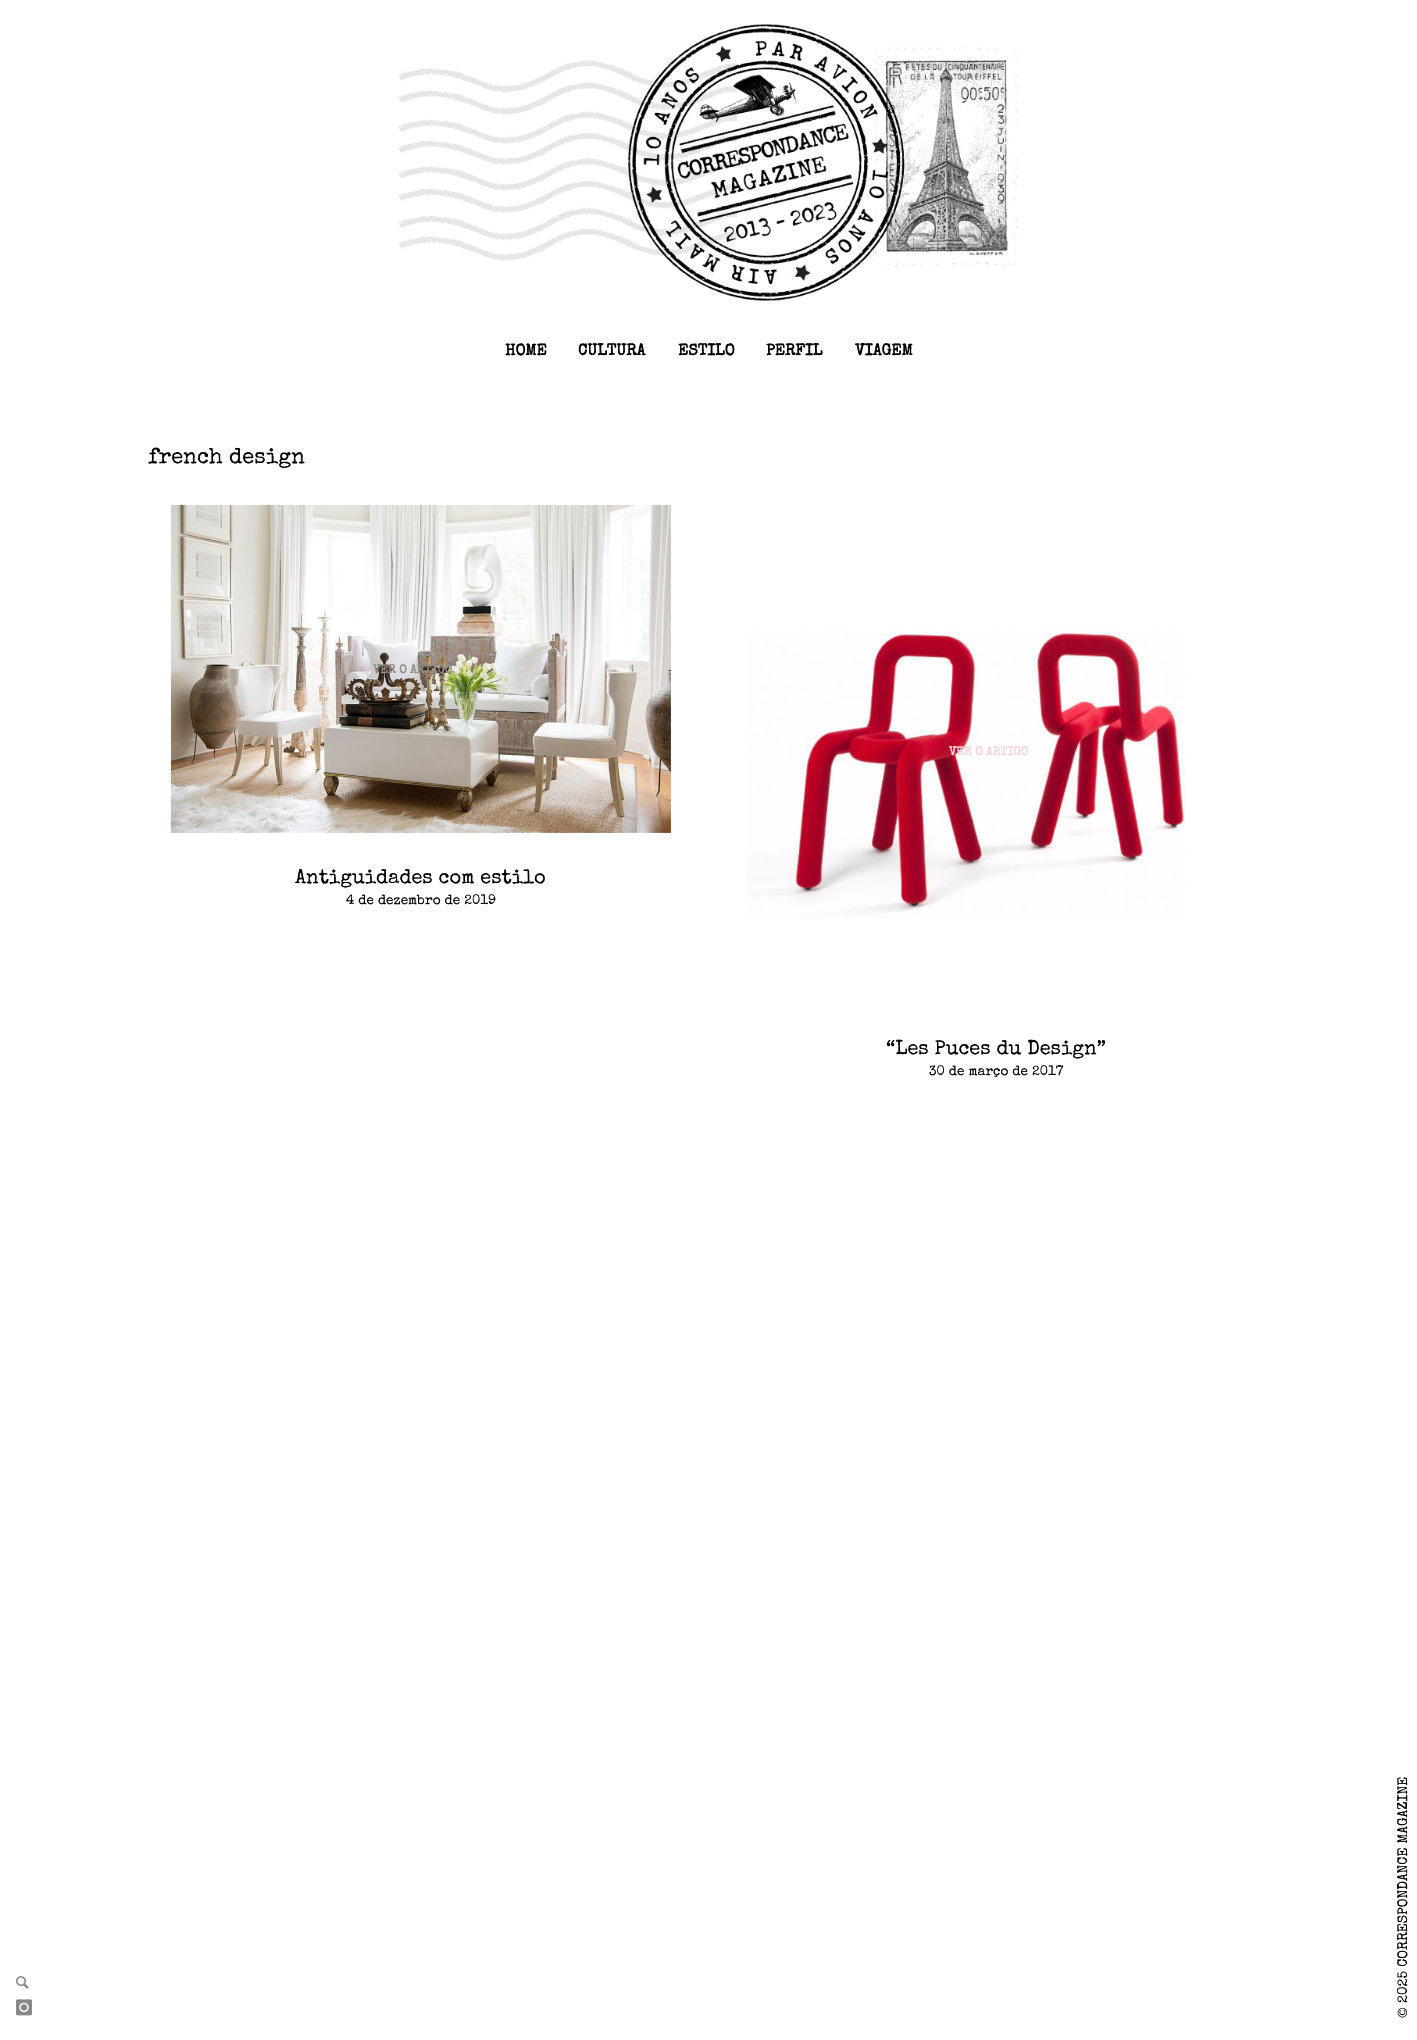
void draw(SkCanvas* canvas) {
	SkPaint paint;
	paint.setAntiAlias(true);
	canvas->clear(0xffffffff);
	canvas->drawImageRect(SkImages::DeferredFromEncodedData(SkData::MakeFromFileName("img1.png")), SkRect::MakeXYWH(398, 24, 620, 278), SkSamplingOptions());
	SkFont f1(fontMgr->matchFamilyStyle("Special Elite", SkFontStyle::Bold()), 16);
	f1.setSubpixel(true);
	paint.setColor(0xff000000);
	canvas->drawString("HOME", 505, 355, f1, paint);
	canvas->drawString("CULTURA", 578, 355, f1, paint);
	canvas->drawString("ESTILO", 678, 355, f1, paint);
	canvas->drawString("PERFIL", 766, 355, f1, paint);
	canvas->drawString("VIAGEM", 855, 355, f1, paint);
	SkFont f2(fontMgr->matchFamilyStyle("Special Elite", SkFontStyle::Normal()), 22);
	f2.setSubpixel(true);
	canvas->drawString("french design", 148, 463, f2, paint);
	canvas->drawImageRect(SkImages::DeferredFromEncodedData(SkData::MakeFromFileName("img2.png")), SkRect::MakeXYWH(170, 504, 501, 329), SkSamplingOptions());
	SkFont f3(fontMgr->matchFamilyStyle("Special Elite", SkFontStyle::Bold()), 12);
	f3.setSubpixel(true);
	paint.setColor(0xff958d83);
	canvas->drawString("VER O ARTIGO", 373, 673, f3, paint);
	SkFont f4(fontMgr->matchFamilyStyle("Special Elite", SkFontStyle::Normal()), 20);
	f4.setSubpixel(true);
	paint.setColor(0xff000000);
	canvas->drawString("Antiguidades com estilo", 295, 883, f4, paint);
	SkFont f5(fontMgr->matchFamilyStyle("Special Elite", SkFontStyle::Normal()), 13.6);
	f5.setSubpixel(true);
	canvas->drawString("4 de dezembro de 2019", 346, 904, f5, paint);
	canvas->drawImageRect(SkImages::DeferredFromEncodedData(SkData::MakeFromFileName("img3.png")), SkRect::MakeXYWH(747, 631, 439, 288), SkSamplingOptions());
	paint.setColor(0xfff3d7dc);
	canvas->drawString("VER O ARTIGO", 949, 755, f3, paint);
	paint.setColor(0xff000000);
	canvas->drawString("“Les Puces du Design”", 886, 1054, f4, paint);
	canvas->drawString("30 de março de 2017", 929, 1075, f5, paint);
	canvas->drawImageRect(SkImages::DeferredFromEncodedData(SkData::MakeFromFileName("img4.png")), SkRect::MakeXYWH(16, 1976, 13, 13), SkSamplingOptions());
	canvas->drawImageRect(SkImages::DeferredFromEncodedData(SkData::MakeFromFileName("img5.png")), SkRect::MakeXYWH(16, 1999, 16, 17), SkSamplingOptions());
	SkFont f6(fontMgr->matchFamilyStyle("Special Elite", SkFontStyle::Normal()), 14);
	f6.setSubpixel(true);
	canvas->save();
	canvas->rotate(-90, 1407, 2003);
	canvas->drawString("2025 CORRESPONDANCE MAGAZINE", 1407, 2003, f6, paint);
	canvas->restore();
	SkFont f7(fontMgr->matchFamilyStyle("Liberation Serif", SkFontStyle::Bold()), 14);
	f7.setSubpixel(true);
	canvas->save();
	canvas->rotate(-90, 1407, 2018);
	canvas->drawString("©", 1407, 2018, f7, paint);
	canvas->restore();
}
